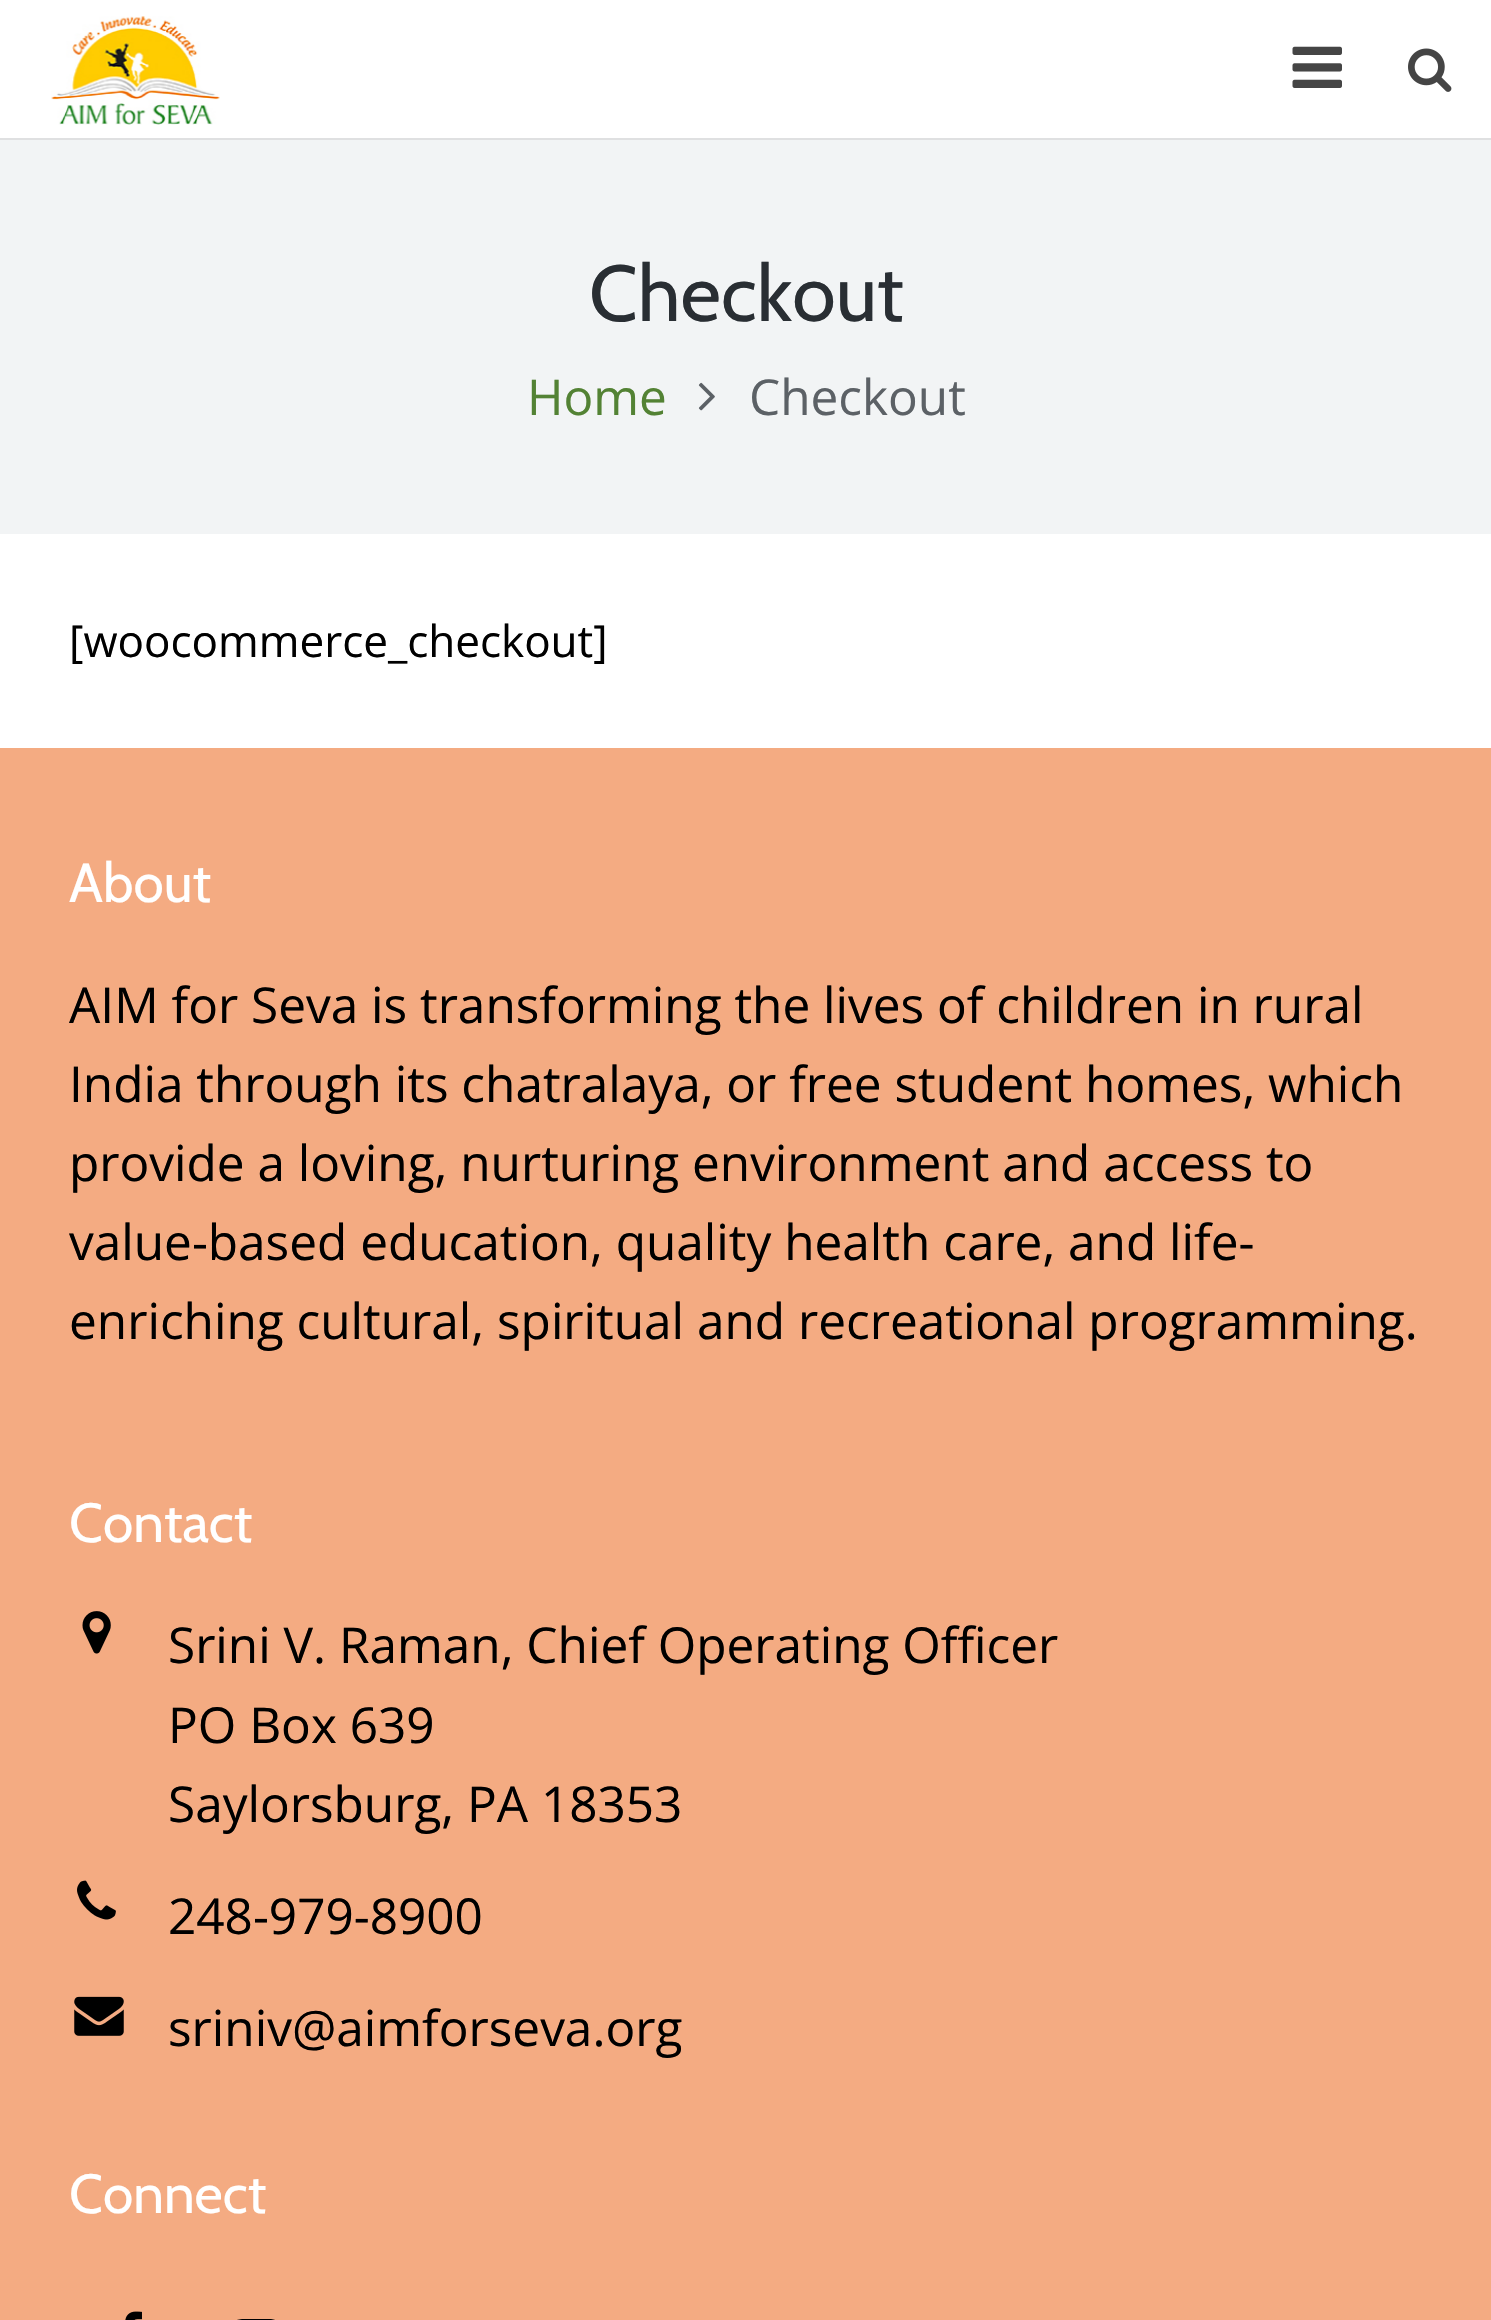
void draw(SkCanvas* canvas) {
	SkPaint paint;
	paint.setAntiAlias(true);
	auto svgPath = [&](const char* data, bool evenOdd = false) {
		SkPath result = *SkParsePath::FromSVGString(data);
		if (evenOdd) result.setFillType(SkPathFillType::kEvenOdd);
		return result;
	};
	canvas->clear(0xffffffff);
	paint.setColor(0xffdfe0e1);
	canvas->drawRect(SkRect::MakeXYWH(0, 138, 1491, 2), paint);
	canvas->drawImageRect(SkImages::DeferredFromEncodedData(SkData::MakeFromFileName("img1.png")), SkRect::MakeXYWH(51, 16, 169, 109), SkSamplingOptions());
	canvas->drawImageRect(SkImages::DeferredFromEncodedData(SkData::MakeFromFileName("img2.png")), SkRect::MakeXYWH(1292, 46, 50, 42), SkSamplingOptions());
	canvas->drawImageRect(SkImages::DeferredFromEncodedData(SkData::MakeFromFileName("img3.png")), SkRect::MakeXYWH(1408, 48, 44, 44), SkSamplingOptions());
	paint.setColor(0xfff2f4f5);
	canvas->drawRect(SkRect::MakeXYWH(0, 140, 1491, 394), paint);
	SkFont f1(fontMgr->matchFamilyStyle("Cabin", SkFontStyle::Normal()), 79);
	f1.setSubpixel(true);
	paint.setColor(0xff292e33);
	canvas->drawString("Checkout", 589, 321, f1, paint);
	SkFont f2(fontMgr->matchFamilyStyle("Open Sans", SkFontStyle::Normal()), 49.5);
	f2.setSubpixel(true);
	paint.setColor(0xff538234);
	canvas->drawString("Home", 527, 415, f2, paint);
	canvas->drawImageRect(SkImages::DeferredFromEncodedData(SkData::MakeFromFileName("img4.png")), SkRect::MakeXYWH(698, 382, 17, 29), SkSamplingOptions());
	paint.setColor(0xff5c6166);
	canvas->drawString("Checkout", 749, 415, f2, paint);
	SkFont f3(fontMgr->matchFamilyStyle("Open Sans", SkFontStyle::Normal()), 44);
	f3.setSubpixel(true);
	paint.setColor(0xff000000);
	canvas->drawString("[woocommerce_checkout]", 69, 657, f3, paint);
	paint.setColor(0xfff4ab82);
	canvas->drawRect(SkRect::MakeXYWH(0, 748, 1491, 1572), paint);
	SkFont f4(fontMgr->matchFamilyStyle("Cabin", SkFontStyle::Normal()), 55);
	f4.setSubpixel(true);
	paint.setColor(0xffffffff);
	canvas->drawString("About", 69, 902, f4, paint);
	paint.setColor(0xff000000);
	canvas->drawString("AIM for Seva is transforming the lives of children in rural", 69, 1023, f2, paint);
	canvas->drawString("India through its chatralaya, or free student homes, which", 69, 1102, f2, paint);
	canvas->drawString("provide a loving, nurturing environment and access to", 69, 1181, f2, paint);
	canvas->drawString("value-based education, quality health care, and life-", 69, 1260, f2, paint);
	canvas->drawString("enriching cultural, spiritual and recreational programming.", 69, 1339, f2, paint);
	paint.setColor(0xffffffff);
	canvas->drawString("Contact", 69, 1542, f4, paint);
	canvas->drawImageRect(SkImages::DeferredFromEncodedData(SkData::MakeFromFileName("img5.png")), SkRect::MakeXYWH(82, 1611, 29, 43), SkSamplingOptions());
	paint.setColor(0xff000000);
	canvas->drawString("Srini V. Raman, Chief Operating Officer", 168, 1663, f2, paint);
	canvas->drawString("PO Box 639", 168, 1743, f2, paint);
	canvas->drawString("Saylorsburg, PA 18353", 168, 1822, f2, paint);
	canvas->drawImageRect(SkImages::DeferredFromEncodedData(SkData::MakeFromFileName("img6.png")), SkRect::MakeXYWH(77, 1880, 39, 40), SkSamplingOptions());
	canvas->drawString("248-979-8900", 168, 1934, f2, paint);
	canvas->drawImageRect(SkImages::DeferredFromEncodedData(SkData::MakeFromFileName("img7.png")), SkRect::MakeXYWH(74, 1996, 50, 40), SkSamplingOptions());
	canvas->drawString("sriniv@aimforseva.org", 168, 2046, f2, paint);
	paint.setColor(0xffffffff);
	canvas->drawString("Connect", 69, 2213, f4, paint);
	canvas->drawImageRect(SkImages::DeferredFromEncodedData(SkData::MakeFromFileName("img8.png")), SkRect::MakeXYWH(125, 2311, 17, 9), SkSamplingOptions());
	paint.setColor(0xff000000);
	canvas->drawPath(svgPath("M251 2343L264 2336L251 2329ZM256 2319H271C281 2320 280 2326 280 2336C280 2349 281 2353 269 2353H242C230 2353 231 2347 231 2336C231 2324 231 2320 242 2319Z"), paint);
}
